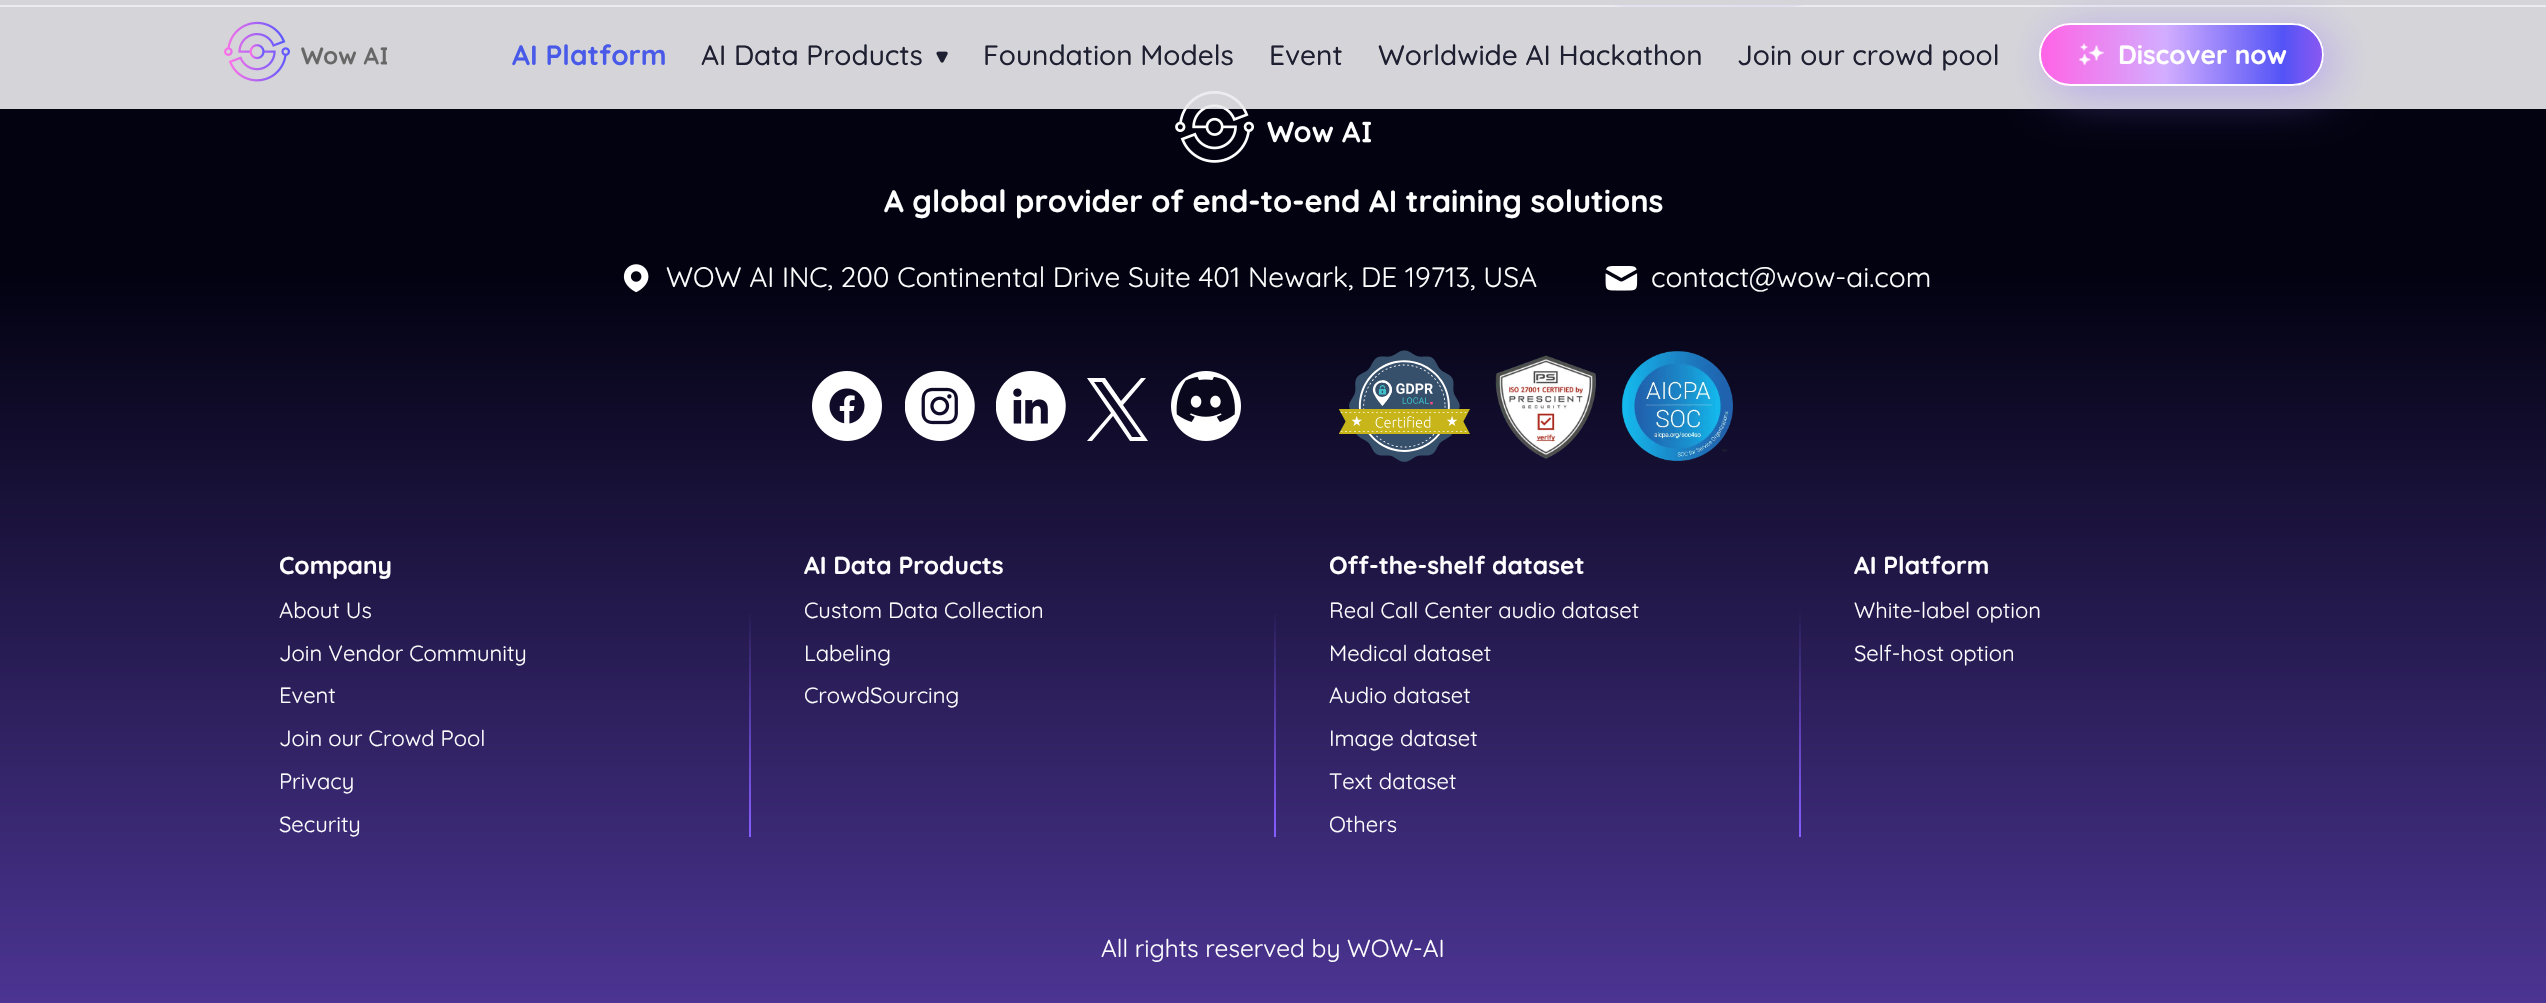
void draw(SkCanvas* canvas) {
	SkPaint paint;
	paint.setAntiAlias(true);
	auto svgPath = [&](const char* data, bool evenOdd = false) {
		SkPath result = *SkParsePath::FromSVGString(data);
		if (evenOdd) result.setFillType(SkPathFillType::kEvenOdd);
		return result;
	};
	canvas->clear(0xffe7ecf3);
	{
		const SkColor colors[] = {0xffb5aafe, 0xff865dff};
		const float stops[] = {0, 1};
		const SkPoint ends[] = {{1524, -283}, {1892, -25}};
		paint.setShader(SkGradientShader::MakeLinear(ends, colors, stops, 2, SkTileMode::kClamp));
		paint.setAlpha(255);
	}
	canvas->drawRoundRect(SkRect::MakeXYWH(1547, -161, 322, 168), 161, 161, paint);
	paint.setShader(nullptr);
	paint.setColor(0xff020211);
	canvas->drawRect(SkRect::MakeXYWH(0, 0, 2546, 5), paint);
	{
		const SkColor colors[] = {0xff020211, 0xff6848c5};
		const float stops[] = {0.21, 1};
		const SkPoint ends[] = {{1273, 7}, {1273, 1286}};
		paint.setShader(SkGradientShader::MakeLinear(ends, colors, stops, 2, SkTileMode::kClamp));
		paint.setAlpha(255);
	}
	canvas->drawRect(SkRect::MakeXYWH(0, 7, 2546, 996), paint);
	canvas->drawImageRect(SkImages::DeferredFromEncodedData(SkData::MakeFromFileName("img4.png")), SkRect::MakeXYWH(1175, 91, 196, 72), SkSamplingOptions());
	paint.setShader(nullptr);
	paint.setColor(0xe6ebebee);
	canvas->drawRect(SkRect::MakeXYWH(0, 0, 2546, 109), paint);
	canvas->drawImageRect(SkImages::DeferredFromEncodedData(SkData::MakeFromFileName("img1.png")), SkRect::MakeXYWH(224, 21, 163, 61), SkSamplingOptions());
	SkFont f1(fontMgr->matchFamilyStyle("Quicksand", SkFontStyle(300, SkFontStyle::kNormal_Width, SkFontStyle::kUpright_Slant)), 28);
	f1.setSubpixel(true);
	paint.setColor(0xff495ae9);
	canvas->drawString("AI Platform", 512, 65, f1, paint);
	SkFont f2(fontMgr->matchFamilyStyle("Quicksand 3", SkFontStyle(300, SkFontStyle::kNormal_Width, SkFontStyle::kUpright_Slant)), 28);
	f2.setSubpixel(true);
	paint.setColor(0xff1e2031);
	canvas->drawString("AI Data Products", 701, 65, f2, paint);
	canvas->drawImageRect(SkImages::DeferredFromEncodedData(SkData::MakeFromFileName("img2.png")), SkRect::MakeXYWH(936, 51, 12, 12), SkSamplingOptions());
	canvas->drawString("Foundation Models", 983, 65, f2, paint);
	canvas->drawString("Event", 1269, 65, f2, paint);
	canvas->drawString("Worldwide AI Hackathon", 1378, 65, f2, paint);
	paint.setColor(0x7d9976ff);
	paint.setMaskFilter(SkMaskFilter::MakeBlur(kNormal_SkBlurStyle, 23.5));
	canvas->drawRoundRect(SkRect::MakeXYWH(2048, 30, 285, 63), 31.5, 31.5, paint);
	paint.setMaskFilter(nullptr);
	paint.setColor(0xff1e2031);
	canvas->drawString("Join our crowd pool", 1737, 65, f2, paint);
	canvas->save();
	canvas->clipPath(svgPath("M2070.5 23H2292.5C2310 23 2324 37 2324 54.5C2324 72 2310 86 2292.5 86H2070.5C2053 86 2039 72 2039 54.5C2039 37 2053 23 2070.5 23Z"), true);
	{
		const SkColor colors[] = {0xffff3cdf, 0xffc799ff, 0xff2828f4, 0xffff3cdf, 0xffc799ff, 0xff2828f4, 0xffff3cdf};
		const float stops[] = {0, 0.17, 0.33, 0.5, 0.67, 0.83, 1};
		const SkPoint ends[] = {{2041, 54}, {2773, 54}};
		paint.setShader(SkGradientShader::MakeLinear(ends, colors, stops, 7, SkTileMode::kClamp));
		paint.setAlpha(255);
	}
	canvas->drawPath(svgPath("M2041 23H2292.5C2310 23 2324 37 2324 54.5C2324 72 2310 86 2292.5 86H2041Z"), paint);
	canvas->restore();
	paint.setStroke(true);
	paint.setStrokeWidth(2);
	paint.setShader(nullptr);
	paint.setColor(0xffffffff);
	canvas->drawRoundRect(SkRect::MakeXYWH(2040, 24, 283, 61), 30.5, 30.5, paint);
	paint.setStroke(false);
	paint.setColor(0x33ffffff);
	canvas->drawRoundRect(SkRect::MakeXYWH(2041, 25, 281, 59), 29.5, 29.5, paint);
	canvas->drawImageRect(SkImages::DeferredFromEncodedData(SkData::MakeFromFileName("img3.png")), SkRect::MakeXYWH(2079, 43, 26, 23), SkSamplingOptions());
	SkFont f3(fontMgr->matchFamilyStyle("Quicksand", SkFontStyle(300, SkFontStyle::kNormal_Width, SkFontStyle::kUpright_Slant)), 26.25);
	f3.setSubpixel(true);
	paint.setColor(0xffffffff);
	canvas->drawString("Discover now", 2118, 64, f3, paint);
	SkFont f4(fontMgr->matchFamilyStyle("Quicksand", SkFontStyle(300, SkFontStyle::kNormal_Width, SkFontStyle::kUpright_Slant)), 30.8);
	f4.setSubpixel(true);
	canvas->drawString("A global provider of end-to-end AI training solutions", 884, 212, f4, paint);
	canvas->drawImageRect(SkImages::DeferredFromEncodedData(SkData::MakeFromFileName("img5.png")), SkRect::MakeXYWH(623, 264, 26, 29), SkSamplingOptions());
	SkFont f5(fontMgr->matchFamilyStyle("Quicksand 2", SkFontStyle(300, SkFontStyle::kNormal_Width, SkFontStyle::kUpright_Slant)), 28);
	f5.setSubpixel(true);
	canvas->drawString("WOW AI INC, 200 Continental Drive Suite 401 Newark, DE 19713, USA", 666, 287, f5, paint);
	canvas->drawImageRect(SkImages::DeferredFromEncodedData(SkData::MakeFromFileName("img6.png")), SkRect::MakeXYWH(1605, 266, 33, 25), SkSamplingOptions());
	canvas->drawString("contact@wow-ai.com", 1651, 287, f5, paint);
	canvas->drawImageRect(SkImages::DeferredFromEncodedData(SkData::MakeFromFileName("img7.png")), SkRect::MakeXYWH(812, 371, 70, 70), SkSamplingOptions());
	canvas->drawImageRect(SkImages::DeferredFromEncodedData(SkData::MakeFromFileName("img8.png")), SkRect::MakeXYWH(905, 371, 70, 70), SkSamplingOptions());
	canvas->drawImageRect(SkImages::DeferredFromEncodedData(SkData::MakeFromFileName("img9.png")), SkRect::MakeXYWH(996, 371, 70, 70), SkSamplingOptions());
	canvas->drawPath(svgPath("M1123 405L1146 378H1141L1121 401L1105 378H1087L1111 413L1087 441H1092L1113 416L1130 441H1148ZM1116 413L1094 382H1102L1141 437H1132Z"), paint);
	canvas->drawImageRect(SkImages::DeferredFromEncodedData(SkData::MakeFromFileName("img10.png")), SkRect::MakeXYWH(1171, 371, 70, 70), SkSamplingOptions());
	canvas->drawImageRect(SkImages::DeferredFromEncodedData(SkData::MakeFromFileName("img11.png")), SkRect::MakeXYWH(1339, 350, 131, 112), SkSamplingOptions());
	canvas->drawImageRect(SkImages::DeferredFromEncodedData(SkData::MakeFromFileName("img12.png")), SkRect::MakeXYWH(1495, 355, 101, 104), SkSamplingOptions());
	canvas->drawImageRect(SkImages::DeferredFromEncodedData(SkData::MakeFromFileName("img13.png")), SkRect::MakeXYWH(1621, 351, 112, 110), SkSamplingOptions());
	SkFont f6(fontMgr->matchFamilyStyle("Quicksand", SkFontStyle(300, SkFontStyle::kNormal_Width, SkFontStyle::kUpright_Slant)), 24.5);
	f6.setSubpixel(true);
	canvas->drawString("Company", 279, 574, f6, paint);
	SkFont f7(fontMgr->matchFamilyStyle("Quicksand 2", SkFontStyle(300, SkFontStyle::kNormal_Width, SkFontStyle::kUpright_Slant)), 22);
	f7.setSubpixel(true);
	canvas->drawString("About Us", 279, 618, f7, paint);
	canvas->drawString("Join Vendor Community", 279, 661, f7, paint);
	canvas->drawString("Event", 279, 703, f7, paint);
	canvas->drawString("Join our Crowd Pool", 279, 746, f7, paint);
	canvas->drawString("Privacy", 279, 789, f7, paint);
	canvas->drawString("Security", 279, 832, f7, paint);
	{
		const SkColor colors[] = {0x00865dff, 0xff865dff};
		const float stops[] = {0.2, 1};
		const SkPoint ends[] = {{750, 551}, {750, 837}};
		paint.setShader(SkGradientShader::MakeLinear(ends, colors, stops, 2, SkTileMode::kClamp));
		paint.setAlpha(255);
	}
	canvas->drawRect(SkRect::MakeXYWH(749, 613, 2, 224), paint);
	paint.setShader(nullptr);
	paint.setColor(0xffffffff);
	canvas->drawString("AI Data Products", 804, 574, f6, paint);
	canvas->drawString("Custom Data Collection", 804, 618, f7, paint);
	canvas->drawString("Labeling", 804, 661, f7, paint);
	canvas->drawString("CrowdSourcing", 804, 703, f7, paint);
	{
		const SkColor colors[] = {0x00865dff, 0xff865dff};
		const float stops[] = {0.2, 1};
		const SkPoint ends[] = {{1275, 551}, {1275, 837}};
		paint.setShader(SkGradientShader::MakeLinear(ends, colors, stops, 2, SkTileMode::kClamp));
		paint.setAlpha(255);
	}
	canvas->drawRect(SkRect::MakeXYWH(1274, 613, 2, 224), paint);
	paint.setShader(nullptr);
	paint.setColor(0xffffffff);
	canvas->drawString("Off-the-shelf dataset", 1329, 574, f6, paint);
	canvas->drawString("Real Call Center audio dataset", 1329, 618, f7, paint);
	canvas->drawString("Medical dataset", 1329, 661, f7, paint);
	canvas->drawString("Audio dataset", 1329, 703, f7, paint);
	canvas->drawString("Image dataset", 1329, 746, f7, paint);
	canvas->drawString("Text dataset", 1329, 789, f7, paint);
	canvas->drawString("Others", 1329, 832, f7, paint);
	{
		const SkColor colors[] = {0x00865dff, 0xff865dff};
		const float stops[] = {0.2, 1};
		const SkPoint ends[] = {{1800, 551}, {1800, 837}};
		paint.setShader(SkGradientShader::MakeLinear(ends, colors, stops, 2, SkTileMode::kClamp));
		paint.setAlpha(255);
	}
	canvas->drawRect(SkRect::MakeXYWH(1799, 613, 2, 224), paint);
	paint.setShader(nullptr);
	paint.setColor(0xffffffff);
	canvas->drawString("AI Platform", 1854, 574, f6, paint);
	canvas->drawString("White-label option", 1854, 618, f7, paint);
	canvas->drawString("Self-host option", 1854, 661, f7, paint);
	SkFont f8(fontMgr->matchFamilyStyle("Quicksand 2", SkFontStyle(300, SkFontStyle::kNormal_Width, SkFontStyle::kUpright_Slant)), 24.5);
	f8.setSubpixel(true);
	canvas->drawString("All rights reserved by WOW-AI", 1101, 957, f8, paint);
}
